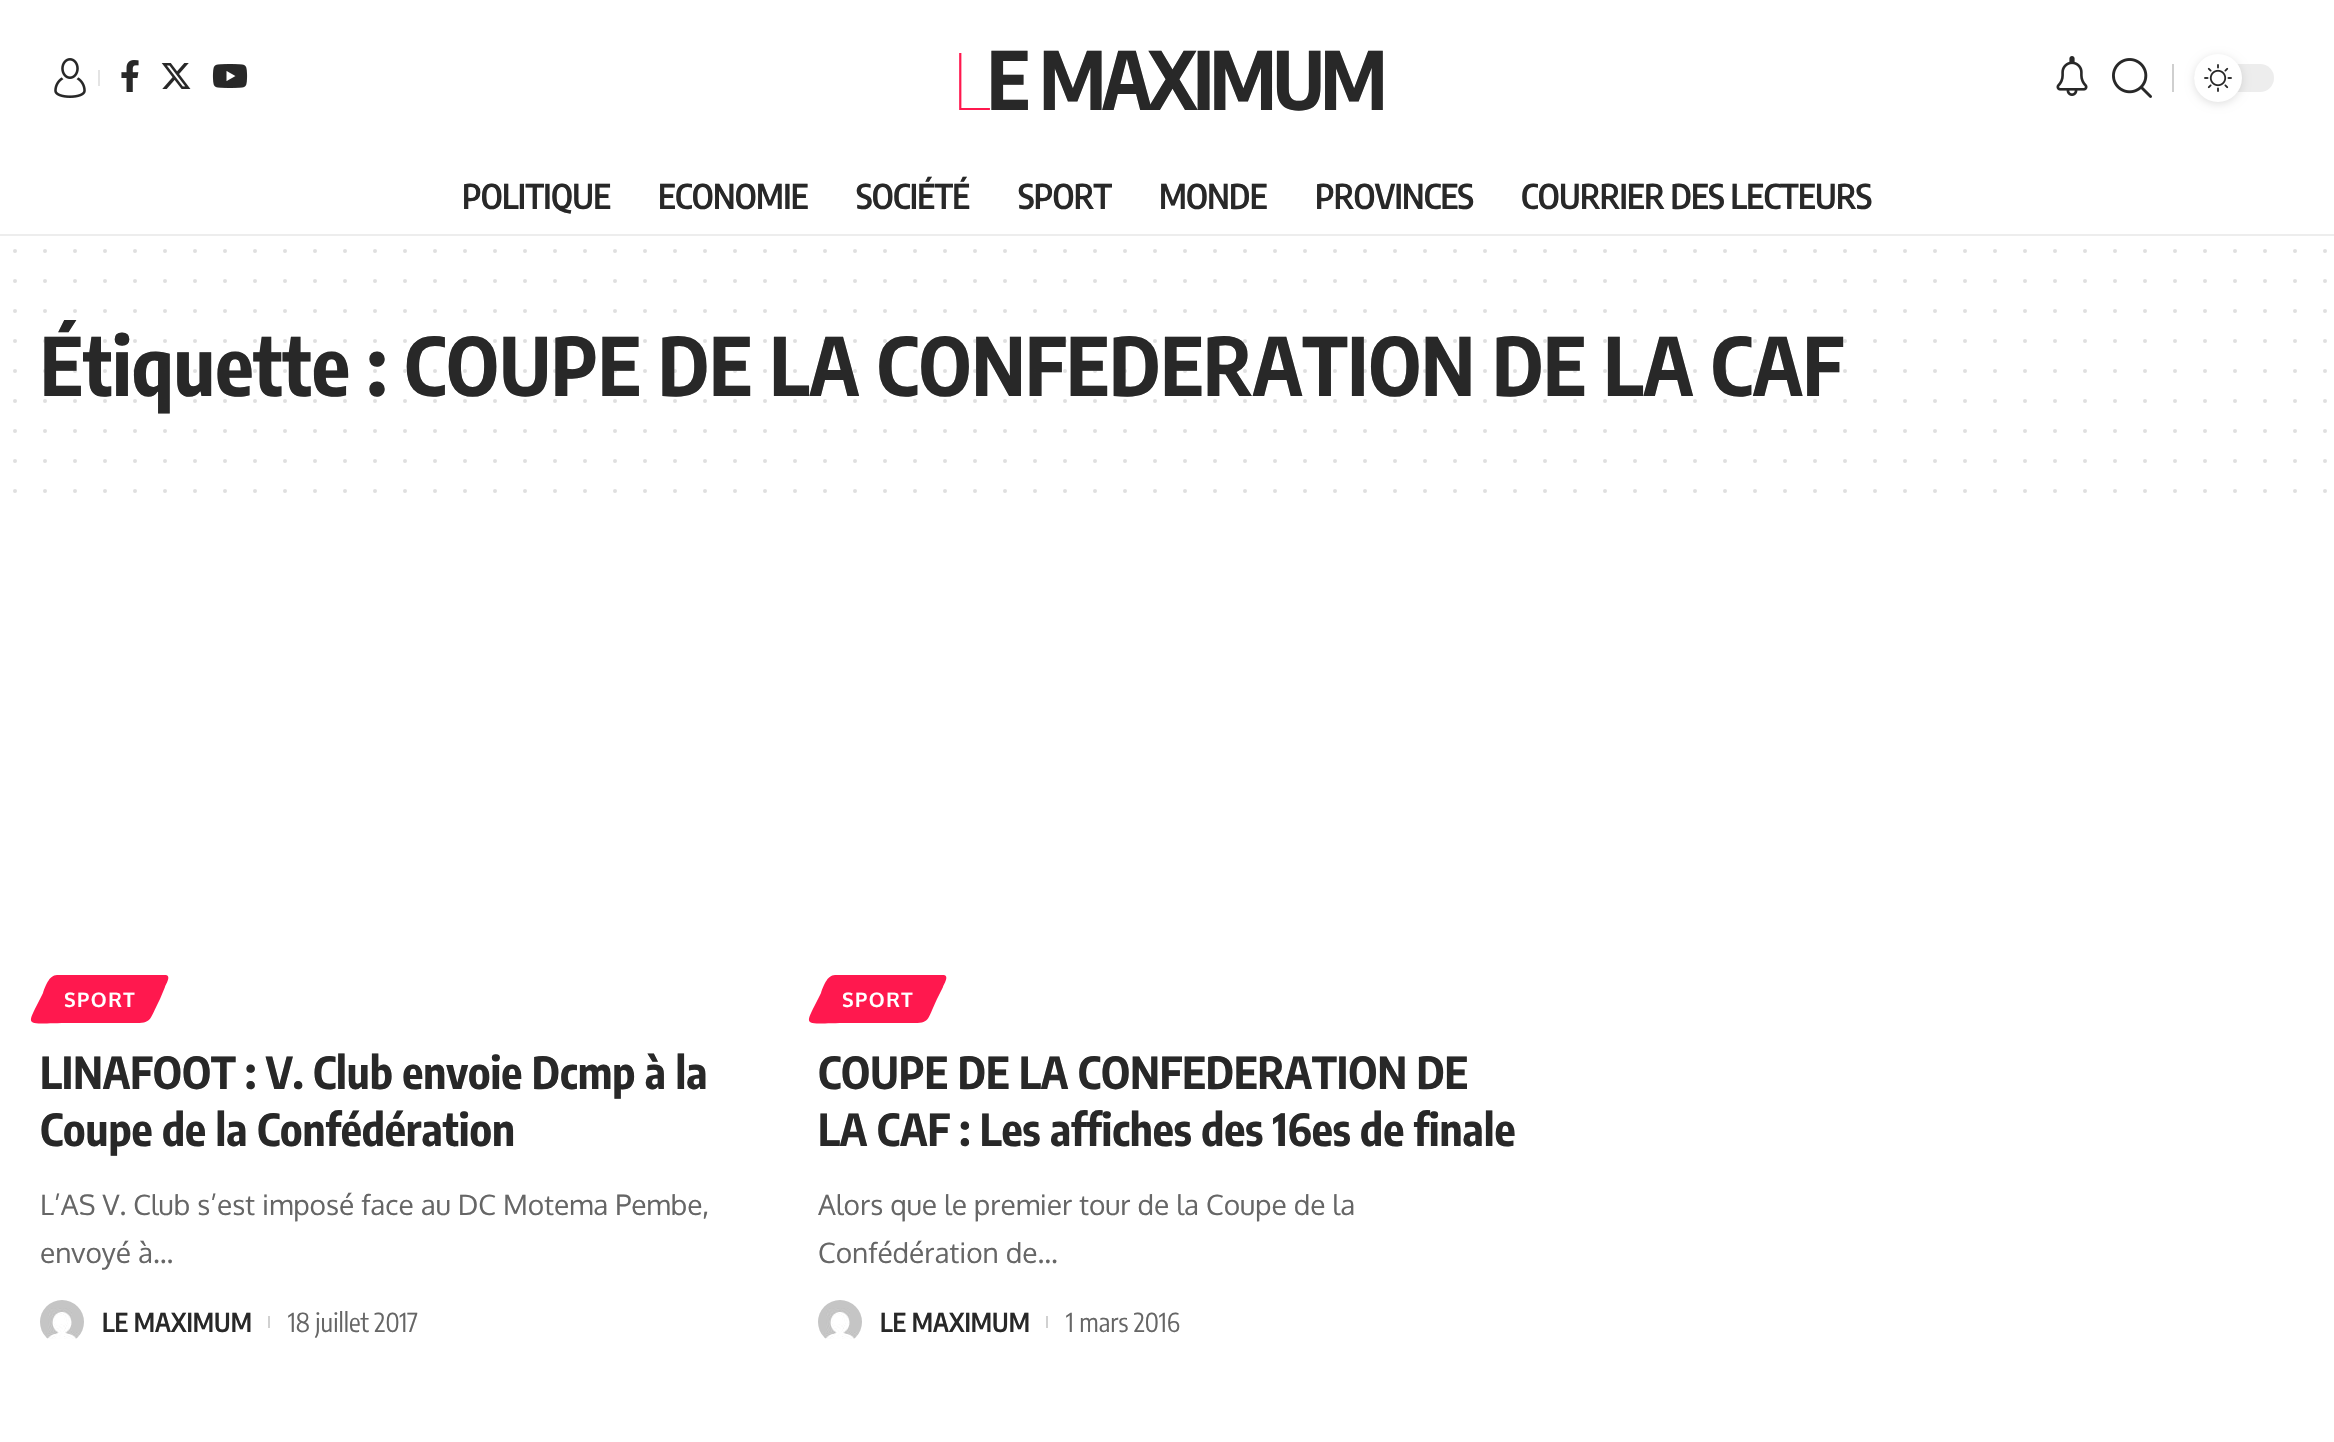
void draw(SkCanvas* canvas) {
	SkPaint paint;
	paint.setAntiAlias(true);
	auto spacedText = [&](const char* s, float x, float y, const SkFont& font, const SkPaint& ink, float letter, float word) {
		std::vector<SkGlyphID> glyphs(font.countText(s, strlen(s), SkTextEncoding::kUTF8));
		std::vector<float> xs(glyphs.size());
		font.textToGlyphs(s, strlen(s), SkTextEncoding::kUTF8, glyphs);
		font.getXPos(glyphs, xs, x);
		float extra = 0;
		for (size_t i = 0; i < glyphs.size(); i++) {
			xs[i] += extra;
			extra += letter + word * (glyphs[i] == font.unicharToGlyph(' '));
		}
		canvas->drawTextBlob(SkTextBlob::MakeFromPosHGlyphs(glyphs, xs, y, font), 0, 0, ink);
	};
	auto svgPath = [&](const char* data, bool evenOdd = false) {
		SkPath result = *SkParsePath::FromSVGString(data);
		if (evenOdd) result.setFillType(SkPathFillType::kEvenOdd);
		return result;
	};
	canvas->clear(0xffffffff);
	canvas->drawImageRect(SkImages::DeferredFromEncodedData(SkData::MakeFromFileName("img1.png")), SkRect::MakeXYWH(54, 58, 32, 40), SkSamplingOptions());
	paint.setColor(0xffe4e4e4);
	canvas->drawRect(SkRect::MakeXYWH(98, 70, 2, 16), paint);
	canvas->drawImageRect(SkImages::DeferredFromEncodedData(SkData::MakeFromFileName("img2.png")), SkRect::MakeXYWH(121, 60, 18, 32), SkSamplingOptions());
	canvas->drawImageRect(SkImages::DeferredFromEncodedData(SkData::MakeFromFileName("img3.png")), SkRect::MakeXYWH(161, 63, 30, 26), SkSamplingOptions());
	canvas->drawImageRect(SkImages::DeferredFromEncodedData(SkData::MakeFromFileName("img4.png")), SkRect::MakeXYWH(212, 64, 36, 24), SkSamplingOptions());
	SkFont f1(fontMgr->matchFamilyStyle("Noto Sans", SkFontStyle(100, SkFontStyle::kNormal_Width, SkFontStyle::kUpright_Slant)), 80);
	f1.setSubpixel(true);
	paint.setColor(0xffff184e);
	spacedText("L", 951, 110, f1, paint, -4, 0);
	SkFont f2(fontMgr->matchFamilyStyle("Encode Sans Condensed", SkFontStyle::Bold()), 80);
	f2.setSubpixel(true);
	paint.setColor(0xff282828);
	spacedText("E MAXIMUM", 987, 110, f2, paint, -4, 0);
	canvas->drawImageRect(SkImages::DeferredFromEncodedData(SkData::MakeFromFileName("img5.png")), SkRect::MakeXYWH(2056, 56, 32, 40), SkSamplingOptions());
	canvas->drawImageRect(SkImages::DeferredFromEncodedData(SkData::MakeFromFileName("img6.png")), SkRect::MakeXYWH(2112, 58, 40, 40), SkSamplingOptions());
	paint.setColor(0xffcfcfcf);
	canvas->drawRect(SkRect::MakeXYWH(2172, 64, 2, 28), paint);
	paint.setColor(0xffededed);
	canvas->drawRoundRect(SkRect::MakeXYWH(2194, 64, 80, 28), 14, 14, paint);
	paint.setColor(0x1f000000);
	paint.setMaskFilter(SkMaskFilter::MakeBlur(kNormal_SkBlurStyle, 4));
	canvas->drawRoundRect(SkRect::MakeXYWH(2194, 56, 48, 48), 24, 24, paint);
	paint.setMaskFilter(nullptr);
	paint.setColor(0xffffffff);
	canvas->drawCircle(2218, 78, 24, paint);
	canvas->drawImageRect(SkImages::DeferredFromEncodedData(SkData::MakeFromFileName("img7.png")), SkRect::MakeXYWH(2204, 64, 28, 28), SkSamplingOptions());
	SkFont f3(fontMgr->matchFamilyStyle("Encode Sans Condensed", SkFontStyle(600, SkFontStyle::kNormal_Width, SkFontStyle::kUpright_Slant)), 34);
	f3.setSubpixel(true);
	paint.setColor(0xff282828);
	spacedText("POLITIQUE", 462, 209, f3, paint, -0.7, 0);
	spacedText("ECONOMIE", 658, 209, f3, paint, -0.7, 0);
	spacedText("SOCIÉTÉ", 856, 209, f3, paint, -0.7, 0);
	spacedText("SPORT", 1018, 209, f3, paint, -0.7, 0);
	spacedText("MONDE", 1159, 209, f3, paint, -0.7, 0);
	spacedText("PROVINCES", 1315, 209, f3, paint, -0.7, 0);
	spacedText("COURRIER DES LECTEURS", 1521, 209, f3, paint, -0.7, 0);
	paint.setColor(0xffededed);
	canvas->drawRect(SkRect::MakeXYWH(0, 234, 2334, 2), paint);
	paint.setStroke(true);
	paint.setStrokeWidth(4);
	paint.setStrokeCap(SkPaint::kRound_Cap);
	paint.setColor(0xffdfdfdf);
	paint.setPathEffect(SkDashPathEffect::Make({{0, 30}}, 0));
	canvas->drawPath(svgPath("M15 251H2325.4"), paint);
	paint.setPathEffect(nullptr);
	paint.setPathEffect(SkDashPathEffect::Make({{0, 30}}, 0));
	canvas->drawPath(svgPath("M15 281H2325.4"), paint);
	paint.setPathEffect(nullptr);
	paint.setPathEffect(SkDashPathEffect::Make({{0, 30}}, 0));
	canvas->drawPath(svgPath("M15 311H2325.4"), paint);
	paint.setPathEffect(nullptr);
	paint.setStroke(false);
	paint.setColor(0xff282828);
	canvas->drawString("Étiquette : COUPE DE LA CONFEDERATION DE LA CAF", 40, 396, f2, paint);
	paint.setStroke(true);
	paint.setColor(0x26282828);
	paint.setPathEffect(SkDashPathEffect::Make({{0, 30}}, 0));
	canvas->drawPath(svgPath("M15 341H2325.4"), paint);
	paint.setPathEffect(nullptr);
	paint.setPathEffect(SkDashPathEffect::Make({{0, 30}}, 0));
	canvas->drawPath(svgPath("M15 371H2325.4"), paint);
	paint.setPathEffect(nullptr);
	paint.setPathEffect(SkDashPathEffect::Make({{0, 30}}, 0));
	canvas->drawPath(svgPath("M15 401H2325.4"), paint);
	paint.setPathEffect(nullptr);
	paint.setColor(0xffdfdfdf);
	paint.setPathEffect(SkDashPathEffect::Make({{0, 30}}, 0));
	canvas->drawPath(svgPath("M15 431H2325.4"), paint);
	paint.setPathEffect(nullptr);
	paint.setPathEffect(SkDashPathEffect::Make({{0, 30}}, 0));
	canvas->drawPath(svgPath("M15 461H2325.4"), paint);
	paint.setPathEffect(nullptr);
	paint.setPathEffect(SkDashPathEffect::Make({{0, 30}}, 0));
	canvas->drawPath(svgPath("M15 491H2325.4"), paint);
	paint.setPathEffect(nullptr);
	paint.setStroke(false);
	paint.setColor(0xffff184e);
	canvas->drawPath(svgPath("M57 975H165C172 975 166 984 165 987L160 999C147 1025 153 1023 124 1023H71C22 1023 25 1030 43 993C45 987 49 975 57 975Z"), paint);
	SkFont f4(fontMgr->matchFamilyStyle("Oxygen", SkFontStyle::Bold()), 20);
	f4.setSubpixel(true);
	paint.setColor(0xffffffff);
	spacedText("SPORT", 64, 1007, f4, paint, 1.5, 0);
	SkFont f5(fontMgr->matchFamilyStyle("Encode Sans Condensed", SkFontStyle::Bold()), 44);
	f5.setSubpixel(true);
	paint.setColor(0xff282828);
	canvas->drawString("LINAFOOT : V. Club envoie Dcmp à la", 40, 1089, f5, paint);
	canvas->drawString("Coupe de la Confédération", 40, 1146, f5, paint);
	SkFont f6(fontMgr->matchFamilyStyle("Oxygen", SkFontStyle::Normal()), 28);
	f6.setSubpixel(true);
	paint.setColor(0xff666666);
	canvas->drawString("L’AS V. Club s’est imposé face au DC Motema Pembe,", 40, 1215, f6, paint);
	canvas->drawString("envoyé à…", 40, 1263, f6, paint);
	canvas->drawImageRect(SkImages::DeferredFromEncodedData(SkData::MakeFromFileName("img8.png")), SkRect::MakeXYWH(40, 1300, 44, 39), SkSamplingOptions());
	SkFont f7(fontMgr->matchFamilyStyle("Encode Sans Condensed", SkFontStyle(600, SkFontStyle::kNormal_Width, SkFontStyle::kUpright_Slant)), 26);
	f7.setSubpixel(true);
	paint.setColor(0xff282828);
	canvas->drawString("LE MAXIMUM", 102, 1332, f7, paint);
	paint.setColor(0xffd1d1d1);
	canvas->drawRect(SkRect::MakeXYWH(268, 1316, 2, 12), paint);
	SkFont f8(fontMgr->matchFamilyStyle("Encode Sans Condensed", SkFontStyle::Normal()), 26);
	f8.setSubpixel(true);
	paint.setColor(0xff666666);
	canvas->drawString("18 juillet 2017", 288, 1332, f8, paint);
	paint.setColor(0xffff184e);
	canvas->drawPath(svgPath("M835 975H943C950 975 944 984 943 987L937 999C925 1025 931 1023 902 1023H849C800 1023 803 1030 821 993C823 987 827 975 835 975Z"), paint);
	paint.setColor(0xffffffff);
	spacedText("SPORT", 842, 1007, f4, paint, 1.5, 0);
	paint.setColor(0xff282828);
	canvas->drawString("COUPE DE LA CONFEDERATION DE", 818, 1089, f5, paint);
	canvas->drawString("LA CAF : Les affiches des 16es de finale", 818, 1146, f5, paint);
	paint.setColor(0xff666666);
	canvas->drawString("Alors que le premier tour de la Coupe de la", 818, 1215, f6, paint);
	canvas->drawString("Confédération de…", 818, 1263, f6, paint);
	canvas->drawImageRect(SkImages::DeferredFromEncodedData(SkData::MakeFromFileName("img8.png")), SkRect::MakeXYWH(818, 1300, 44, 39), SkSamplingOptions());
	paint.setColor(0xff282828);
	canvas->drawString("LE MAXIMUM", 880, 1332, f7, paint);
	paint.setColor(0xffd1d1d1);
	canvas->drawRect(SkRect::MakeXYWH(1046, 1316, 2, 12), paint);
	paint.setColor(0xff666666);
	canvas->drawString("1 mars 2016", 1066, 1332, f8, paint);
}
